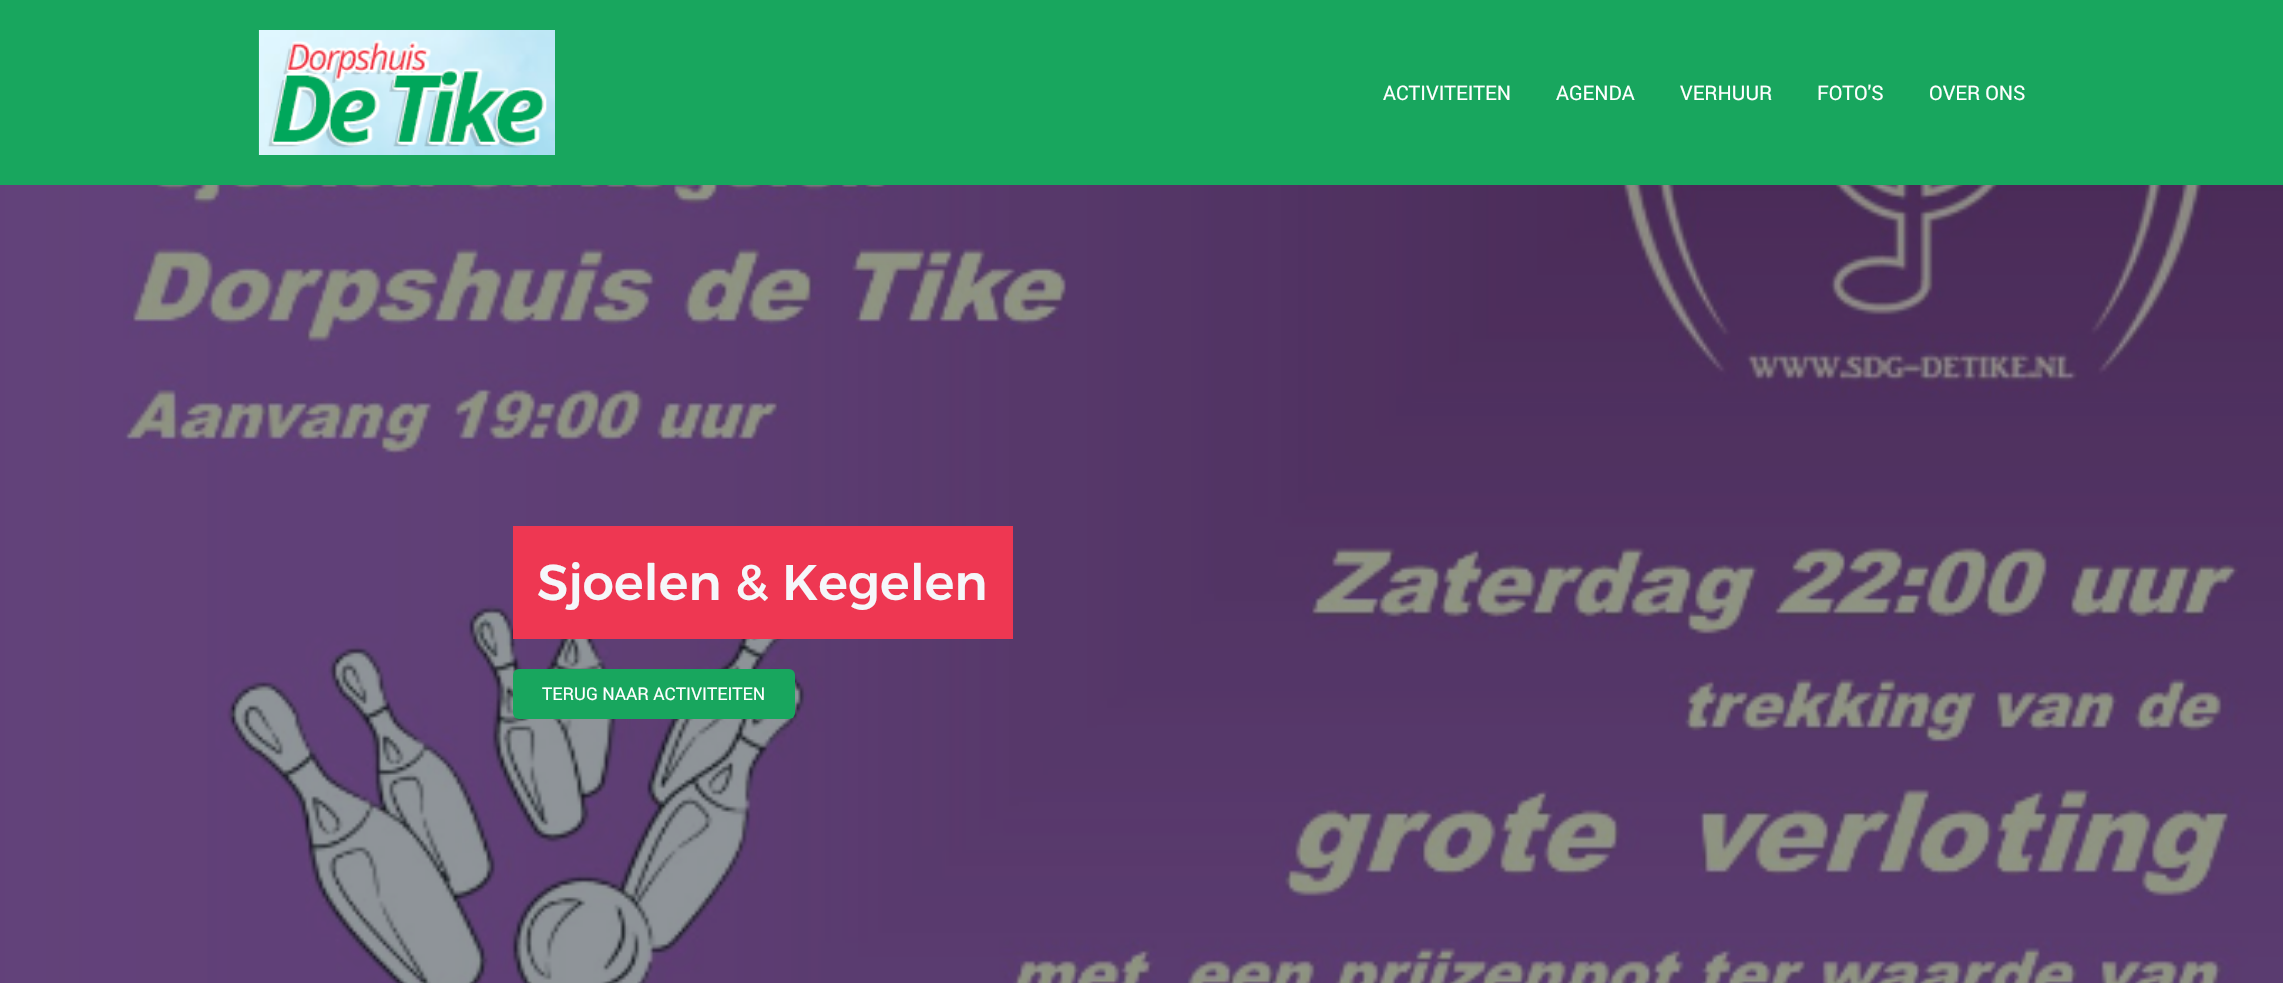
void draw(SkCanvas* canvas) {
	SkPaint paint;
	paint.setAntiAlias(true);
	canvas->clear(0xff18a65e);
	canvas->drawImageRect(SkImages::DeferredFromEncodedData(SkData::MakeFromFileName("img1.png")), SkRect::MakeXYWH(258, 30, 297, 125), SkSamplingOptions());
	SkFont f1(fontMgr->matchFamilyStyle("Roboto", SkFontStyle::Normal()), 20);
	f1.setSubpixel(true);
	paint.setColor(0xffffffff);
	canvas->drawString("ACTIVITEITEN", 1383, 100, f1, paint);
	canvas->drawString("AGENDA", 1556, 100, f1, paint);
	canvas->drawString("VERHUUR", 1680, 100, f1, paint);
	canvas->drawString("FOTO'S", 1817, 100, f1, paint);
	canvas->drawString("OVER ONS", 1929, 100, f1, paint);
	canvas->drawImageRect(SkImages::DeferredFromEncodedData(SkData::MakeFromFileName("img2.png")), SkRect::MakeXYWH(0, 185, 2283, 798), SkSamplingOptions());
	paint.setColor(0xffee3752);
	canvas->drawRect(SkRect::MakeXYWH(513, 526, 500, 113), paint);
	SkFont f2(fontMgr->matchFamilyStyle("Alexandria", SkFontStyle(500, SkFontStyle::kNormal_Width, SkFontStyle::kUpright_Slant)), 50);
	f2.setSubpixel(true);
	paint.setColor(0xfff5f7fa);
	canvas->drawString("Sjoelen & Kegelen", 537, 600, f2, paint);
	paint.setColor(0xff18a65e);
	canvas->drawRoundRect(SkRect::MakeXYWH(513, 669, 282, 50), 6, 6, paint);
	SkFont f3(fontMgr->matchFamilyStyle("Roboto", SkFontStyle::Normal()), 17.5);
	f3.setSubpixel(true);
	paint.setColor(0xffffffff);
	canvas->drawString("TERUG NAAR ACTIVITEITEN", 542, 700, f3, paint);
}
